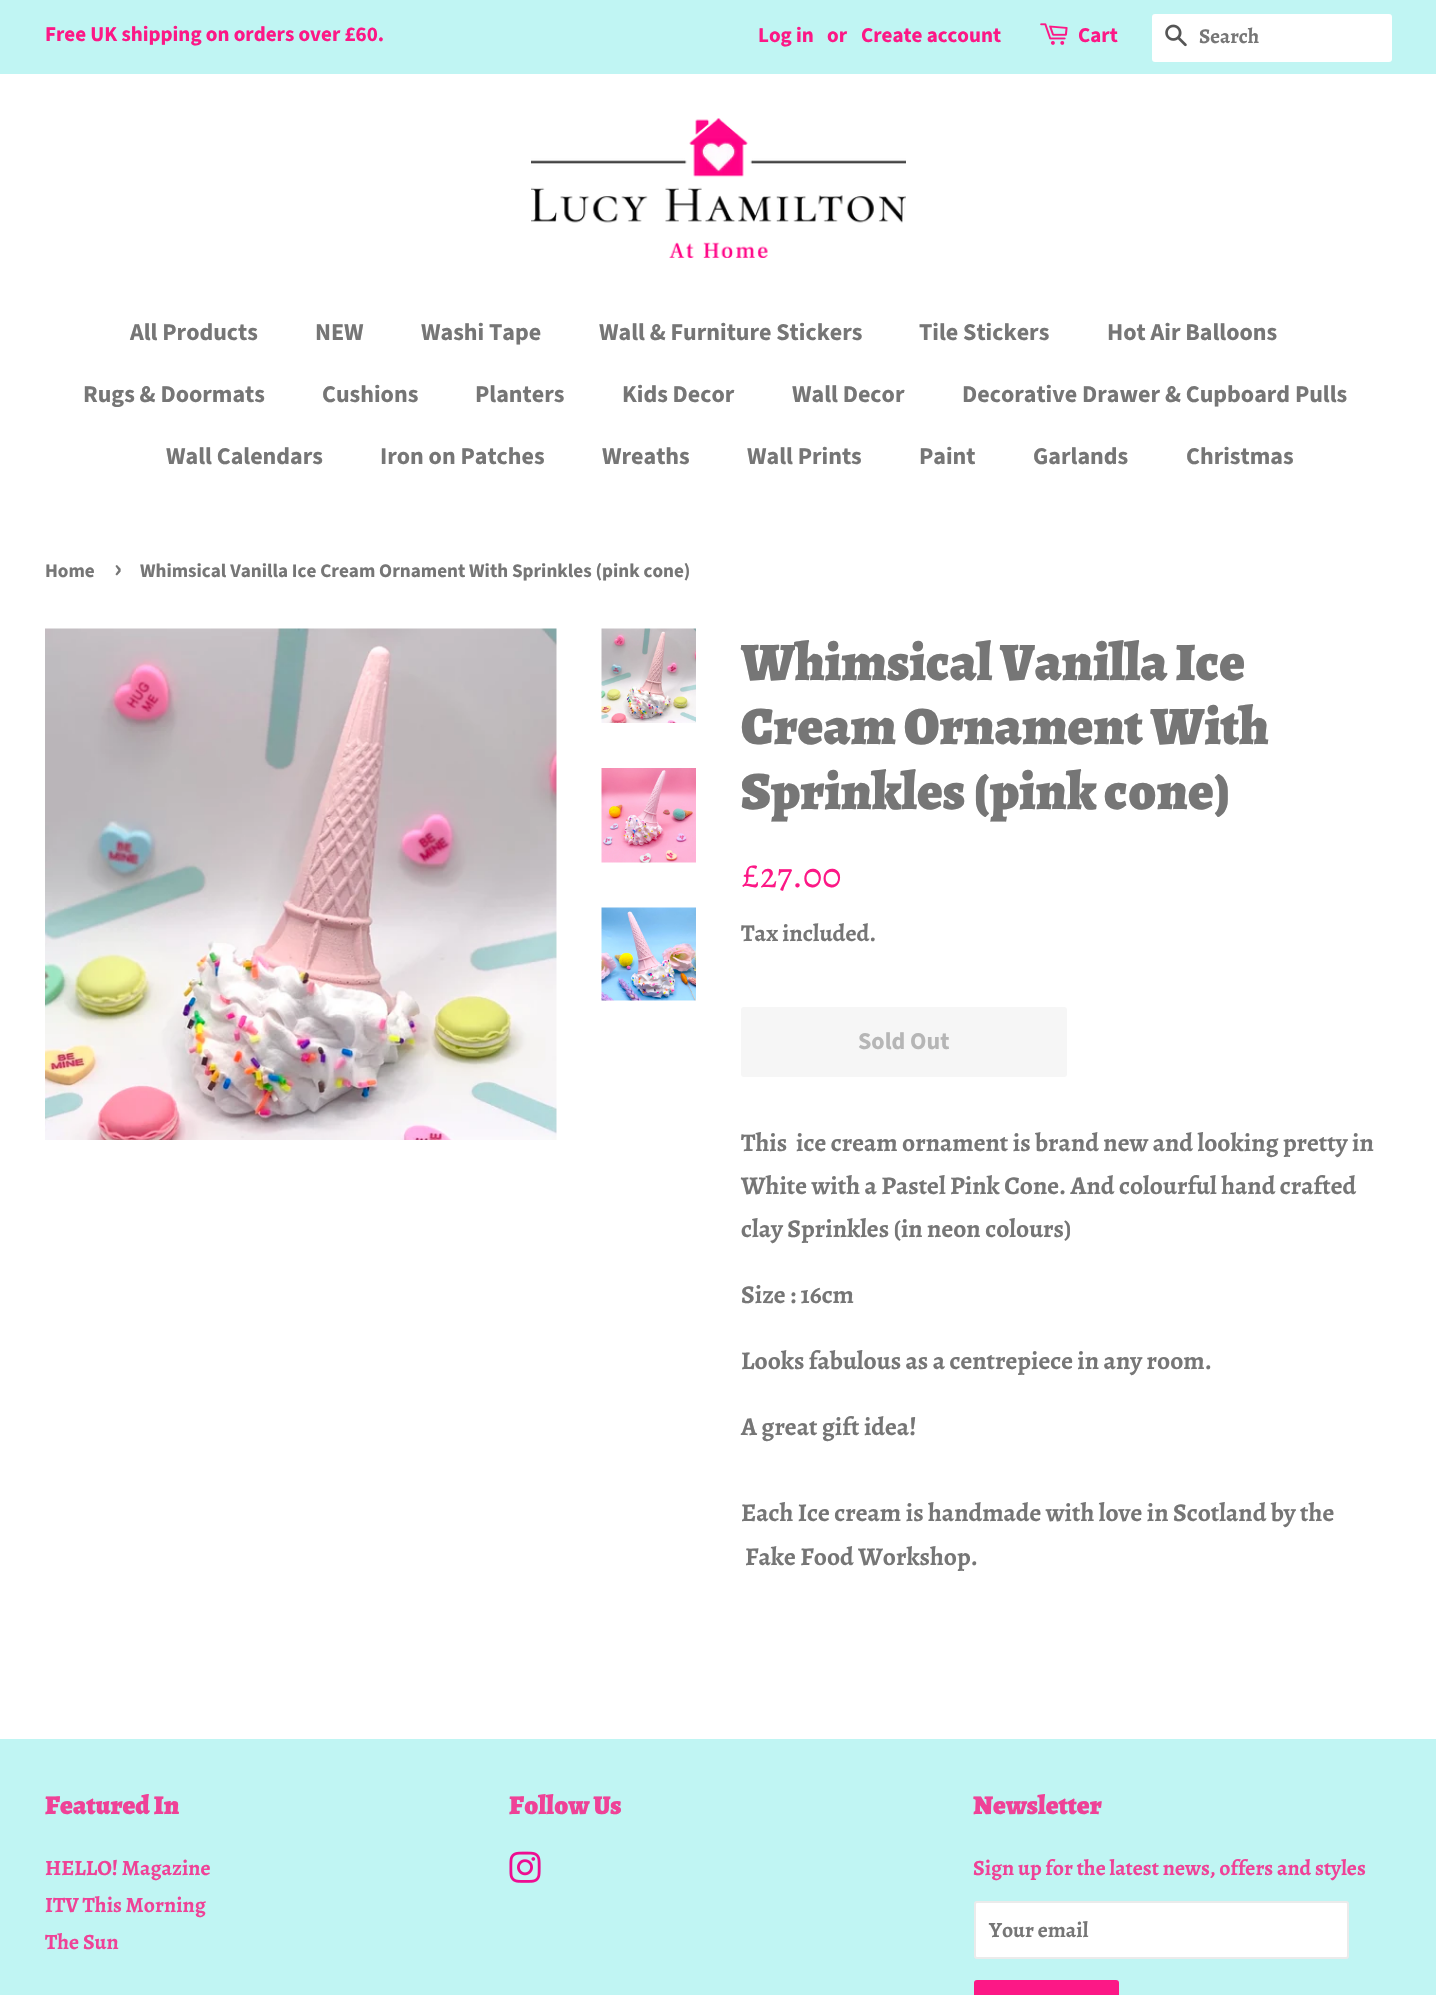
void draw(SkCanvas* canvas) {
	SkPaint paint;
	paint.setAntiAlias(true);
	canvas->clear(0xffffffff);
	paint.setColor(0xffc0f5f3);
	canvas->drawRect(SkRect::MakeXYWH(0, 0, 1436, 74), paint);
	SkFont f1(fontMgr->matchFamilyStyle("Source Sans Pro", SkFontStyle::Bold()), 21);
	f1.setSubpixel(true);
	paint.setColor(0xfffc1886);
	canvas->drawString("Free UK shipping on orders over £60.", 45, 41, f1, paint);
	canvas->drawString("Log in", 758, 42, f1, paint);
	canvas->drawString("or", 827, 42, f1, paint);
	canvas->drawString("Create account", 861, 42, f1, paint);
	canvas->drawImageRect(SkImages::DeferredFromEncodedData(SkData::MakeFromFileName("img1.png")), SkRect::MakeXYWH(1040, 23, 28, 22), SkSamplingOptions());
	canvas->drawString("Cart", 1078, 42, f1, paint);
	paint.setColor(0xffffffff);
	canvas->drawRoundRect(SkRect::MakeXYWH(1152, 14, 240, 48), 3, 3, paint);
	canvas->drawImageRect(SkImages::DeferredFromEncodedData(SkData::MakeFromFileName("img2.png")), SkRect::MakeXYWH(1165, 24, 22, 23), SkSamplingOptions());
	SkFont f2(fontMgr->matchFamilyStyle("Alegreya", SkFontStyle::Bold()), 21);
	f2.setSubpixel(true);
	paint.setColor(0xff767676);
	canvas->drawString("Search", 1199, 43, f2, paint);
	canvas->drawImageRect(SkImages::DeferredFromEncodedData(SkData::MakeFromFileName("img3.png")), SkRect::MakeXYWH(531, 118, 375, 140), SkSamplingOptions());
	SkFont f3(fontMgr->matchFamilyStyle("Source Sans Pro", SkFontStyle::Bold()), 24);
	f3.setSubpixel(true);
	canvas->drawString("All Products", 130, 340, f3, paint);
	canvas->drawString("NEW", 315, 340, f3, paint);
	canvas->drawString("Washi Tape", 421, 340, f3, paint);
	canvas->drawString("Wall & Furniture Stickers", 599, 340, f3, paint);
	canvas->drawString("Tile Stickers", 919, 340, f3, paint);
	canvas->drawString("Hot Air Balloons", 1107, 340, f3, paint);
	canvas->drawString("Rugs & Doormats", 83, 402, f3, paint);
	canvas->drawString("Cushions", 322, 402, f3, paint);
	canvas->drawString("Planters", 475, 402, f3, paint);
	canvas->drawString("Kids Decor", 622, 402, f3, paint);
	canvas->drawString("Wall Decor", 792, 402, f3, paint);
	canvas->drawString("Decorative Drawer & Cupboard Pulls", 962, 402, f3, paint);
	canvas->drawString("Wall Calendars", 166, 464, f3, paint);
	canvas->drawString("Iron on Patches", 380, 464, f3, paint);
	canvas->drawString("Wreaths", 602, 464, f3, paint);
	canvas->drawString("Wall Prints", 747, 464, f3, paint);
	canvas->drawString("Paint", 919, 464, f3, paint);
	canvas->drawString("Garlands", 1033, 464, f3, paint);
	canvas->drawString("Christmas", 1186, 464, f3, paint);
	SkFont f4(fontMgr->matchFamilyStyle("Source Sans Pro", SkFontStyle::Bold()), 19.1);
	f4.setSubpixel(true);
	canvas->drawString("Home", 45, 577, f4, paint);
	SkFont f5(fontMgr->matchFamilyStyle("Source Sans Pro", SkFontStyle::Bold()), 27);
	f5.setSubpixel(true);
	canvas->drawString("›", 114, 577, f5, paint);
	canvas->drawString("Whimsical Vanilla Ice Cream Ornament With Sprinkles (pink cone)", 140, 577, f4, paint);
	canvas->drawImageRect(SkImages::DeferredFromEncodedData(SkData::MakeFromFileName("img4.png")), SkRect::MakeXYWH(45, 628, 512, 512), SkSamplingOptions());
	canvas->drawImageRect(SkImages::DeferredFromEncodedData(SkData::MakeFromFileName("img5.png")), SkRect::MakeXYWH(601, 628, 95, 95), SkSamplingOptions());
	canvas->drawImageRect(SkImages::DeferredFromEncodedData(SkData::MakeFromFileName("img6.png")), SkRect::MakeXYWH(601, 768, 95, 95), SkSamplingOptions());
	canvas->drawImageRect(SkImages::DeferredFromEncodedData(SkData::MakeFromFileName("img7.png")), SkRect::MakeXYWH(601, 907, 95, 94), SkSamplingOptions());
	SkFont f6(fontMgr->matchFamilyStyle("Alegreya", SkFontStyle(900, SkFontStyle::kNormal_Width, SkFontStyle::kUpright_Slant)), 54);
	f6.setSubpixel(true);
	canvas->drawString("Whimsical Vanilla Ice", 741, 680, f6, paint);
	canvas->drawString("Cream Ornament With", 741, 744, f6, paint);
	canvas->drawString("Sprinkles (pink cone)", 741, 809, f6, paint);
	SkFont f7(fontMgr->matchFamilyStyle("Alegreya", SkFontStyle::Normal()), 36);
	f7.setSubpixel(true);
	paint.setColor(0xfffc1886);
	canvas->drawString("£27.00", 741, 887, f7, paint);
	SkFont f8(fontMgr->matchFamilyStyle("Alegreya", SkFontStyle::Bold()), 24);
	f8.setSubpixel(true);
	paint.setColor(0xff767676);
	canvas->drawString("Tax included.", 741, 941, f8, paint);
	paint.setColor(0xfff6f6f6);
	canvas->drawRoundRect(SkRect::MakeXYWH(741, 1007, 326, 70), 3, 3, paint);
	paint.setColor(0xffb6b6b6);
	canvas->drawString("Sold Out", 858, 1049, f3, paint);
	SkFont f9(fontMgr->matchFamilyStyle("Alegreya", SkFontStyle::Bold()), 25.5);
	f9.setSubpixel(true);
	paint.setColor(0xff767676);
	canvas->drawString("This  ice cream ornament is brand new and looking pretty in", 741, 1151, f9, paint);
	canvas->drawString("White with a Pastel Pink Cone. And colourful hand crafted", 741, 1194, f9, paint);
	canvas->drawString("clay Sprinkles (in neon colours)", 741, 1237, f9, paint);
	canvas->drawString("Size : 16cm", 741, 1303, f9, paint);
	canvas->drawString("Looks fabulous as a centrepiece in any room.", 741, 1369, f9, paint);
	canvas->drawString("A great gift idea!", 741, 1435, f9, paint);
	canvas->drawString("Each Ice cream is handmade with love in Scotland by the", 741, 1521, f9, paint);
	canvas->drawString("Fake Food Workshop.", 745, 1565, f9, paint);
	paint.setColor(0xffc0f5f3);
	canvas->drawRect(SkRect::MakeXYWH(0, 1739, 1436, 256), paint);
	SkFont f10(fontMgr->matchFamilyStyle("Alegreya", SkFontStyle(900, SkFontStyle::kNormal_Width, SkFontStyle::kUpright_Slant)), 27);
	f10.setSubpixel(true);
	paint.setColor(0xffef4297);
	canvas->drawString("Featured In", 45, 1814, f10, paint);
	SkFont f11(fontMgr->matchFamilyStyle("Alegreya", SkFontStyle::Bold()), 21.7);
	f11.setSubpixel(true);
	canvas->drawString("HELLO! Magazine", 45, 1875, f11, paint);
	canvas->drawString("ITV This Morning", 45, 1912, f11, paint);
	canvas->drawString("The Sun", 45, 1949, f11, paint);
	canvas->drawString("Follow Us", 509, 1814, f10, paint);
	canvas->drawImageRect(SkImages::DeferredFromEncodedData(SkData::MakeFromFileName("img8.png")), SkRect::MakeXYWH(509, 1851, 32, 32), SkSamplingOptions());
	canvas->drawString("Newsletter", 973, 1814, f10, paint);
	canvas->drawString("Sign up for the latest news, offers and styles", 973, 1875, f11, paint);
	paint.setColor(0xffffffff);
	canvas->drawRoundRect(SkRect::MakeXYWH(974, 1901, 375, 58), 3, 3, paint);
	paint.setStroke(true);
	paint.setStrokeWidth(2);
	paint.setColor(0x26767676);
	canvas->drawRoundRect(SkRect::MakeXYWH(975, 1902, 373, 56), 2, 2, paint);
	paint.setStroke(false);
	paint.setColor(0xff767676);
	canvas->drawString("Your email", 989, 1937, f11, paint);
	paint.setColor(0xfffc1886);
	canvas->drawRoundRect(SkRect::MakeXYWH(974, 1980, 145, 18), 3, 3, paint);
}
